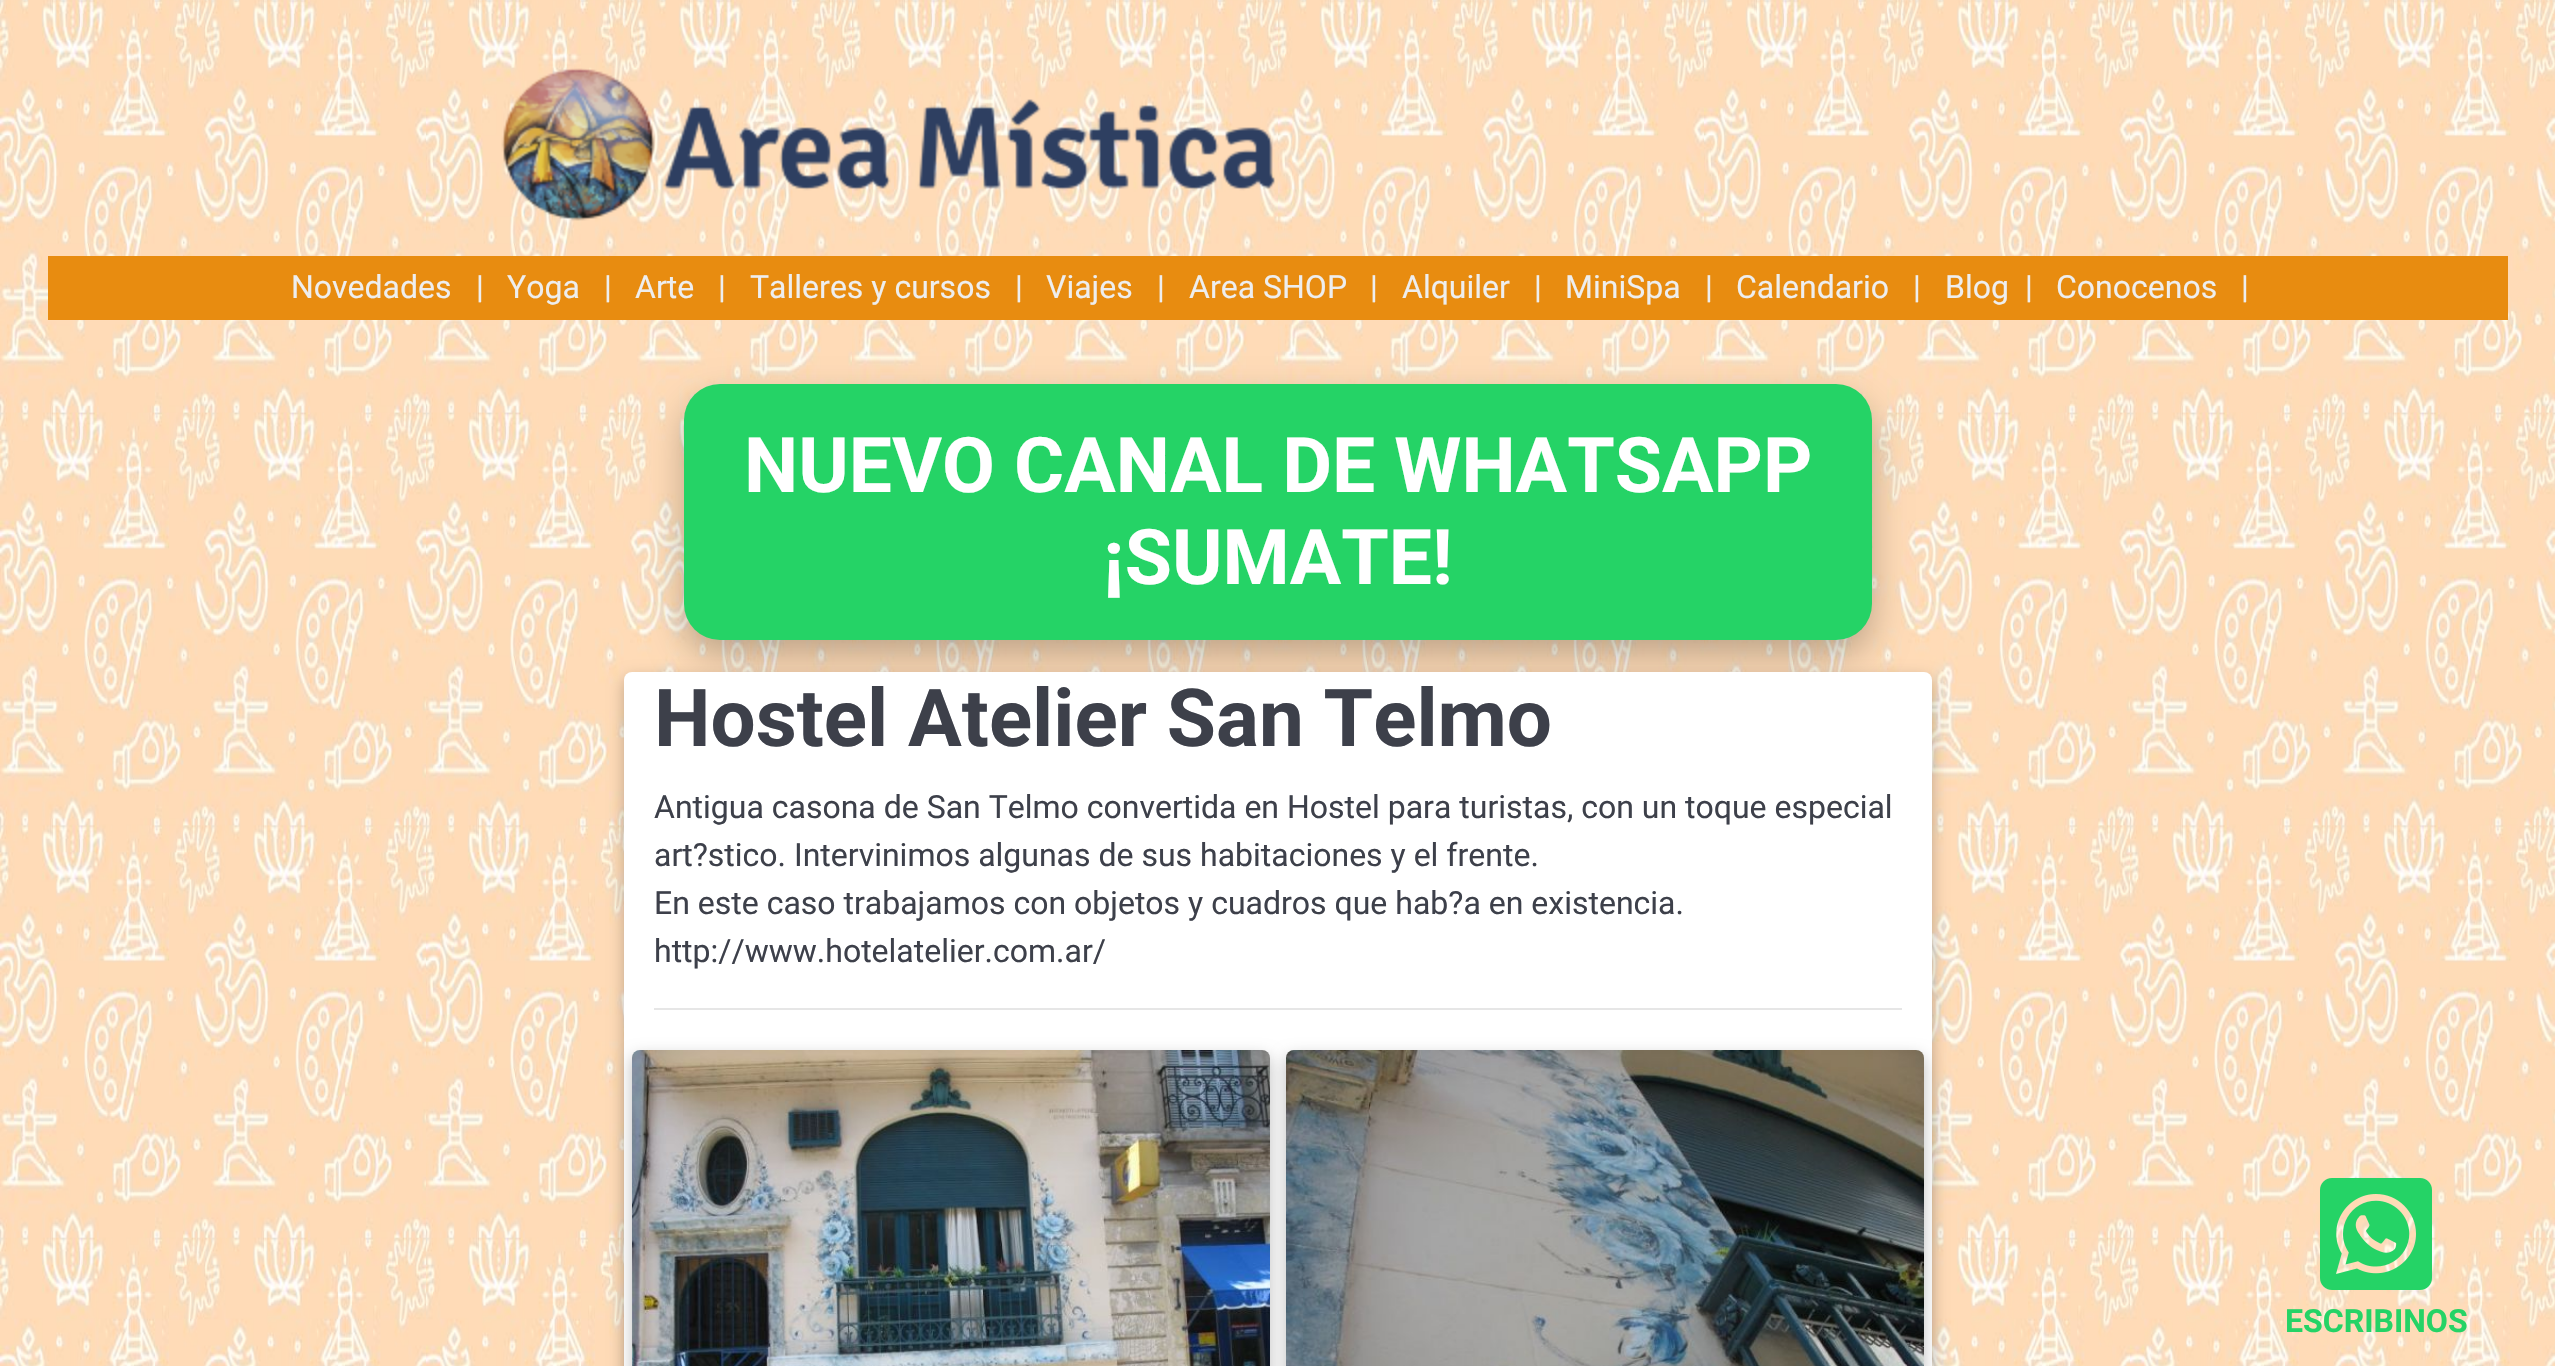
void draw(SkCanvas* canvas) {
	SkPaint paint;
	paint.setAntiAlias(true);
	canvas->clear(0xffffffff);
	canvas->drawImageRect(SkImages::DeferredFromEncodedData(SkData::MakeFromFileName("img1.png")), SkRect::MakeXYWH(0, 0, 2555, 1366), SkSamplingOptions());
	canvas->drawImageRect(SkImages::DeferredFromEncodedData(SkData::MakeFromFileName("img2.png")), SkRect::MakeXYWH(501, 68, 774, 153), SkSamplingOptions());
	paint.setColor(0xffe88c10);
	canvas->drawRect(SkRect::MakeXYWH(48, 256, 2460, 64), paint);
	SkFont f1(fontMgr->matchFamilyStyle("Roboto", SkFontStyle::Normal()), 32);
	f1.setSubpixel(true);
	paint.setColor(0xffeeeeee);
	canvas->drawString("Novedades", 291, 298, f1, paint);
	canvas->drawString("|", 476, 298, f1, paint);
	canvas->drawString("Yoga", 507, 298, f1, paint);
	canvas->drawString("|", 604, 298, f1, paint);
	canvas->drawString("Arte", 635, 298, f1, paint);
	canvas->drawString("|", 718, 298, f1, paint);
	canvas->drawString("Talleres y cursos", 750, 298, f1, paint);
	canvas->drawString("|", 1015, 298, f1, paint);
	canvas->drawString("Viajes", 1046, 298, f1, paint);
	canvas->drawString("|", 1157, 298, f1, paint);
	canvas->drawString("Area SHOP", 1189, 298, f1, paint);
	canvas->drawString("|", 1370, 298, f1, paint);
	canvas->drawString("Alquiler", 1402, 298, f1, paint);
	canvas->drawString("|", 1534, 298, f1, paint);
	canvas->drawString("MiniSpa", 1565, 298, f1, paint);
	canvas->drawString("|", 1705, 298, f1, paint);
	canvas->drawString("Calendario", 1736, 298, f1, paint);
	canvas->drawString("|", 1913, 298, f1, paint);
	canvas->drawString("Blog", 1945, 298, f1, paint);
	canvas->drawString("|", 2025, 298, f1, paint);
	canvas->drawString("Conocenos", 2056, 298, f1, paint);
	canvas->drawString("|", 2241, 298, f1, paint);
	paint.setColor(0x40000000);
	paint.setMaskFilter(SkMaskFilter::MakeBlur(kNormal_SkBlurStyle, 18));
	canvas->drawRoundRect(SkRect::MakeXYWH(684, 400, 1188, 256), 36, 36, paint);
	paint.setMaskFilter(nullptr);
	paint.setColor(0xff25d366);
	canvas->drawRoundRect(SkRect::MakeXYWH(684, 384, 1188, 256), 36, 36, paint);
	SkFont f2(fontMgr->matchFamilyStyle("Roboto", SkFontStyle::Bold()), 76.75);
	f2.setSubpixel(true);
	paint.setColor(0xffffffff);
	canvas->drawString("NUEVO CANAL DE WHATSAPP", 744, 492, f2, paint);
	canvas->drawString("¡SUMATE!", 1103, 584, f2, paint);
	paint.setColor(0x40000000);
	paint.setMaskFilter(SkMaskFilter::MakeBlur(kNormal_SkBlurStyle, 8));
	canvas->drawRoundRect(SkRect::MakeXYWH(624, 678, 1308, 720), 8, 8, paint);
	paint.setMaskFilter(nullptr);
	paint.setColor(0xffffffff);
	canvas->drawRoundRect(SkRect::MakeXYWH(624, 672, 1308, 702), 8, 8, paint);
	SkFont f3(fontMgr->matchFamilyStyle("Roboto", SkFontStyle::Bold()), 80);
	f3.setSubpixel(true);
	paint.setColor(0xff3d404a);
	canvas->drawString("Hostel Atelier San Telmo", 654, 746, f3, paint);
	canvas->drawString("Antigua casona de San Telmo convertida en Hostel para turistas, con un toque especial", 654, 818, f1, paint);
	canvas->drawString("art?stico. Intervinimos algunas de sus habitaciones y el frente.", 654, 866, f1, paint);
	canvas->drawString("En este caso trabajamos con objetos y cuadros que hab?a en existencia.", 654, 914, f1, paint);
	canvas->drawString("http://www.hotelatelier.com.ar/", 654, 962, f1, paint);
	paint.setColor(0xffe6e6e6);
	canvas->drawRect(SkRect::MakeXYWH(654, 1008, 1248, 2), paint);
	paint.setColor(0x40000000);
	paint.setMaskFilter(SkMaskFilter::MakeBlur(kNormal_SkBlurStyle, 8));
	canvas->drawRoundRect(SkRect::MakeXYWH(632, 1056, 638, 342), 8, 8, paint);
	paint.setMaskFilter(nullptr);
	canvas->drawImageRect(SkImages::DeferredFromEncodedData(SkData::MakeFromFileName("img3.png")), SkRect::MakeXYWH(632, 1050, 638, 316), SkSamplingOptions());
	paint.setMaskFilter(SkMaskFilter::MakeBlur(kNormal_SkBlurStyle, 8));
	canvas->drawRoundRect(SkRect::MakeXYWH(1286, 1056, 638, 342), 8, 8, paint);
	paint.setMaskFilter(nullptr);
	canvas->drawImageRect(SkImages::DeferredFromEncodedData(SkData::MakeFromFileName("img4.png")), SkRect::MakeXYWH(1286, 1050, 638, 316), SkSamplingOptions());
	canvas->drawImageRect(SkImages::DeferredFromEncodedData(SkData::MakeFromFileName("img5.png")), SkRect::MakeXYWH(2320, 1178, 112, 112), SkSamplingOptions());
	SkFont f4(fontMgr->matchFamilyStyle("Roboto", SkFontStyle::Bold()), 32);
	f4.setSubpixel(true);
	paint.setColor(0xff25d366);
	canvas->drawString("ESCRIBINOS", 2285, 1332, f4, paint);
}
